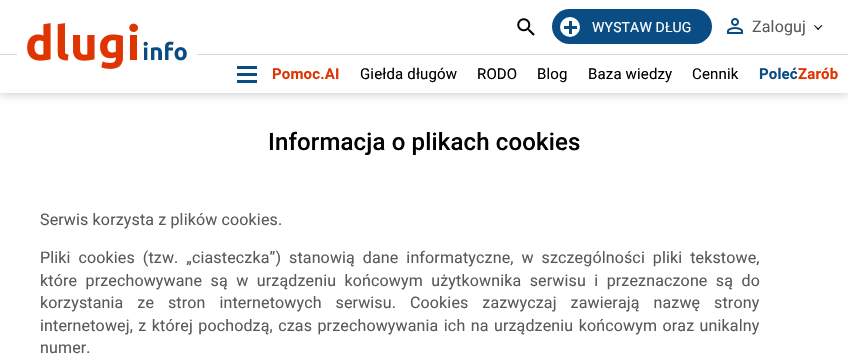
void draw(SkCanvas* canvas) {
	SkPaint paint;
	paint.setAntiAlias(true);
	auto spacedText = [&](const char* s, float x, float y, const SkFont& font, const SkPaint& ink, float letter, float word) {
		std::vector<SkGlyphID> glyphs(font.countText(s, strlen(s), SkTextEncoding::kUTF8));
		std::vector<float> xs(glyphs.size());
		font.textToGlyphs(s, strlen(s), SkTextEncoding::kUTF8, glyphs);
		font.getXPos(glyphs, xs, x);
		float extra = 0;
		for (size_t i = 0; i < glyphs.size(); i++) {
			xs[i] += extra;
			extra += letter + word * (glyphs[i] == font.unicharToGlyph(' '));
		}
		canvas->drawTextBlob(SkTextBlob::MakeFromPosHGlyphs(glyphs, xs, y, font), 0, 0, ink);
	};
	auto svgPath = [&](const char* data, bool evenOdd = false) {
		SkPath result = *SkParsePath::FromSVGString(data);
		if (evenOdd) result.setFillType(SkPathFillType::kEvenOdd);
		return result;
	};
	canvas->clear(0xffffffff);
	canvas->save();
	canvas->clipRect(SkRect::MakeXYWH(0, 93, 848, 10));
	paint.setColor(0xffc0c0c0);
	paint.setMaskFilter(SkMaskFilter::MakeBlur(kNormal_SkBlurStyle, 5));
	canvas->drawRect(SkRect::MakeXYWH(0, 0, 848, 93), paint);
	paint.setMaskFilter(nullptr);
	canvas->restore();
	paint.setColor(0xffd7d7d7);
	canvas->drawRect(SkRect::MakeXYWH(0, 54, 848, 1), paint);
	paint.setColor(0xffffffff);
	canvas->drawRect(SkRect::MakeXYWH(17, 54, 180, 1), paint);
	canvas->drawImageRect(SkImages::DeferredFromEncodedData(SkData::MakeFromFileName("img1.png")), SkRect::MakeXYWH(27, 23, 160, 46), SkSamplingOptions());
	canvas->drawImageRect(SkImages::DeferredFromEncodedData(SkData::MakeFromFileName("img2.png")), SkRect::MakeXYWH(517, 18, 18, 18), SkSamplingOptions());
	paint.setColor(0xff094d84);
	canvas->drawRoundRect(SkRect::MakeXYWH(552, 9, 160, 35), 17.5, 17.5, paint);
	paint.setColor(0xffffffff);
	canvas->drawCircle(570, 27, 10, paint);
	paint.setColor(0xff094d84);
	canvas->drawRect(SkRect::MakeXYWH(564, 26, 13, 3), paint);
	canvas->drawRect(SkRect::MakeXYWH(569, 21, 3, 13), paint);
	SkFont f1(fontMgr->matchFamilyStyle("Roboto", SkFontStyle::Normal()), 14);
	f1.setSubpixel(true);
	paint.setColor(0xffffffff);
	spacedText("WYSTAW DŁUG", 592, 32, f1, paint, 0.15, 0);
	canvas->drawImageRect(SkImages::DeferredFromEncodedData(SkData::MakeFromFileName("img3.png")), SkRect::MakeXYWH(727, 18, 16, 16), SkSamplingOptions());
	SkFont f2(fontMgr->matchFamilyStyle("Roboto", SkFontStyle::Normal()), 16);
	f2.setSubpixel(true);
	paint.setColor(0xff595959);
	spacedText("Zaloguj", 752, 32, f2, paint, 0.15, 0);
	paint.setColor(0xff000000);
	canvas->drawPath(svgPath("M821.5 25L822.5 25.5L818 30L817.5 29Z"), paint);
	canvas->drawPath(svgPath("M814.5 25L819 29L818 30L814 25.5Z"), paint);
	paint.setColor(0xff094d84);
	canvas->drawRect(SkRect::MakeXYWH(237, 66, 20, 3), paint);
	canvas->drawRect(SkRect::MakeXYWH(237, 73, 20, 3), paint);
	canvas->drawRect(SkRect::MakeXYWH(237, 80, 20, 3), paint);
	SkFont f3(fontMgr->matchFamilyStyle("Roboto", SkFontStyle::Bold()), 15);
	f3.setSubpixel(true);
	paint.setColor(0xffdf3502);
	spacedText("Pomoc.AI", 272, 79, f3, paint, 0.15, 0);
	SkFont f4(fontMgr->matchFamilyStyle("Roboto", SkFontStyle::Normal()), 15);
	f4.setSubpixel(true);
	paint.setColor(0xff000000);
	spacedText("Giełda długów", 360, 79, f4, paint, 0.15, 0);
	spacedText("RODO", 477, 79, f4, paint, 0.15, 0);
	spacedText("Blog", 537, 79, f4, paint, 0.15, 0);
	spacedText("Baza wiedzy", 588, 79, f4, paint, 0.15, 0);
	spacedText("Cennik", 692, 79, f4, paint, 0.15, 0);
	paint.setColor(0xff094d84);
	spacedText("Poleć", 759, 79, f3, paint, 0.15, 0);
	paint.setColor(0xffdf3502);
	spacedText("Zarób", 798, 79, f3, paint, 0.15, 0);
	SkFont f5(fontMgr->matchFamilyStyle("Roboto", SkFontStyle(500, SkFontStyle::kNormal_Width, SkFontStyle::kUpright_Slant)), 24);
	f5.setSubpixel(true);
	paint.setColor(0xff000000);
	spacedText("Informacja o plikach cookies", 268, 150, f5, paint, 0.15, 0);
	paint.setColor(0xff595959);
	spacedText("Serwis korzysta z plików cookies.", 40, 225, f2, paint, 0.15, 0);
	spacedText("Pliki cookies (tzw. „ciasteczka”) stanowią dane informatyczne, w szczególności pliki tekstowe,", 40, 263, f2, paint, 0.15, 3.75);
	spacedText("które przechowywane są w urządzeniu końcowym użytkownika serwisu i przeznaczone są do", 40, 286, f2, paint, 0.15, 4.25);
	spacedText("korzystania ze stron internetowych serwisu. Cookies zazwyczaj zawierają nazwę strony", 40, 308, f2, paint, 0.15, 9.75);
	spacedText("internetowej, z której pochodzą, czas przechowywania ich na urządzeniu końcowym oraz unikalny", 40, 331, f2, paint, 0.15, 1.25);
	spacedText("numer.", 40, 353, f2, paint, 0.15, 0);
}
